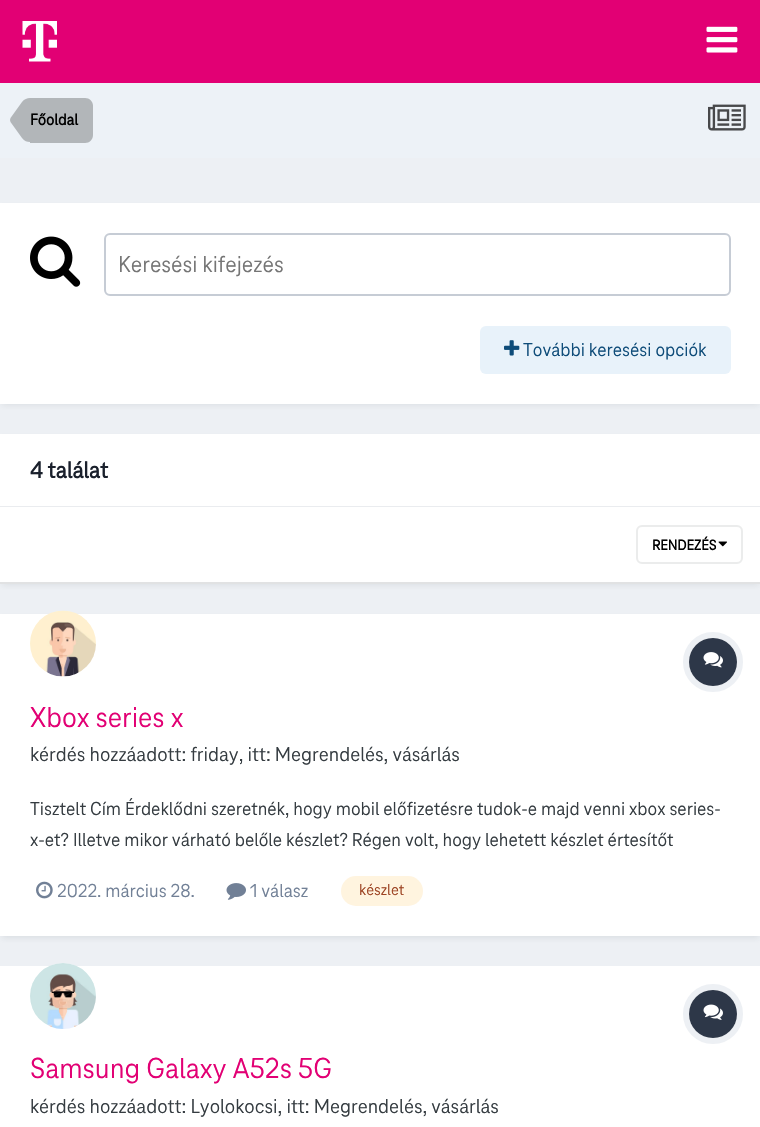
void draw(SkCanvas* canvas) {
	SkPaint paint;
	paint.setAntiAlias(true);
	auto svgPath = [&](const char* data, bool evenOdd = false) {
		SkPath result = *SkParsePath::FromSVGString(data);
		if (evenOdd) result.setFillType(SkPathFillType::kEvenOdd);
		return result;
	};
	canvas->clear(0xffedf0f4);
	paint.setColor(0xffe20074);
	canvas->drawRect(SkRect::MakeXYWH(0, 0, 760, 83), paint);
	canvas->drawImageRect(SkImages::DeferredFromEncodedData(SkData::MakeFromFileName("img1.png")), SkRect::MakeXYWH(22, 21, 35, 41), SkSamplingOptions());
	canvas->drawImageRect(SkImages::DeferredFromEncodedData(SkData::MakeFromFileName("img2.png")), SkRect::MakeXYWH(706, 26, 32, 27), SkSamplingOptions());
	paint.setColor(0xffedf2f7);
	canvas->drawRect(SkRect::MakeXYWH(0, 83, 760, 75), paint);
	paint.setColor(0xffb2b6b9);
	canvas->drawPath(svgPath("M30 98H85C89.5 98 93 101.5 93 106V135C93 139.5 89.5 143 85 143H30Z"), paint);
	canvas->drawPath(svgPath("M30 120V142C27 142 24.5 141 22 138L10.5 122L10 120ZM30 120H10L10.5 118L22 102C24.5 99 27 98 30 98Z"), paint);
	SkFont f1(fontMgr->matchFamilyStyle("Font", SkFontStyle::Bold()), 16.5);
	f1.setSubpixel(true);
	paint.setColor(0xff000000);
	canvas->drawString("Főoldal", 30, 125, f1, paint);
	canvas->drawImageRect(SkImages::DeferredFromEncodedData(SkData::MakeFromFileName("img3.png")), SkRect::MakeXYWH(708, 104, 38, 27), SkSamplingOptions());
	paint.setColor(0x1a2d3748);
	paint.setMaskFilter(SkMaskFilter::MakeBlur(kNormal_SkBlurStyle, 3));
	canvas->drawRect(SkRect::MakeXYWH(2, 207, 757, 198), paint);
	paint.setMaskFilter(nullptr);
	paint.setColor(0xffffffff);
	canvas->drawRect(SkRect::MakeXYWH(0, 203, 760, 201), paint);
	canvas->drawImageRect(SkImages::DeferredFromEncodedData(SkData::MakeFromFileName("img4.png")), SkRect::MakeXYWH(30, 236, 51, 51), SkSamplingOptions());
	paint.setStroke(true);
	paint.setStrokeWidth(2);
	paint.setColor(0xffc6ccd5);
	canvas->drawRoundRect(SkRect::MakeXYWH(105, 234, 625, 61), 5, 5, paint);
	SkFont f2(fontMgr->matchFamilyStyle("Font", SkFontStyle::Normal()), 24);
	f2.setSubpixel(true);
	paint.setStroke(false);
	paint.setColor(0xff757575);
	canvas->drawString("Keresési kifejezés", 118, 272, f2, paint);
	paint.setColor(0xffe8f2fa);
	canvas->drawRoundRect(SkRect::MakeXYWH(480, 326, 251, 48), 6, 6, paint);
	canvas->drawImageRect(SkImages::DeferredFromEncodedData(SkData::MakeFromFileName("img5.png")), SkRect::MakeXYWH(504, 340, 16, 16), SkSamplingOptions());
	SkFont f3(fontMgr->matchFamilyStyle("Font", SkFontStyle::Normal()), 19.5);
	f3.setSubpixel(true);
	paint.setColor(0xff0e4c79);
	canvas->drawString("További keresési opciók", 523, 356, f3, paint);
	paint.setColor(0x1a2d3748);
	paint.setMaskFilter(SkMaskFilter::MakeBlur(kNormal_SkBlurStyle, 3));
	canvas->drawRect(SkRect::MakeXYWH(2, 438, 757, 147), paint);
	paint.setMaskFilter(nullptr);
	paint.setColor(0xffffffff);
	canvas->drawRect(SkRect::MakeXYWH(0, 434, 760, 72), paint);
	paint.setColor(0xffeaecef);
	canvas->drawRect(SkRect::MakeXYWH(0, 506, 760, 1), paint);
	SkFont f4(fontMgr->matchFamilyStyle("Font", SkFontStyle::Bold()), 24);
	f4.setSubpixel(true);
	paint.setColor(0xff1a202c);
	canvas->drawString("4 találat", 30, 478, f4, paint);
	paint.setColor(0xffffffff);
	canvas->drawRect(SkRect::MakeXYWH(0, 507, 760, 75), paint);
	paint.setColor(0xffe1e2e3);
	canvas->drawRect(SkRect::MakeXYWH(0, 582, 760, 2), paint);
	canvas->drawImageRect(SkImages::DeferredFromEncodedData(SkData::MakeFromFileName("img6.png")), SkRect::MakeXYWH(718, 541, 9, 6), SkSamplingOptions());
	paint.setStroke(true);
	paint.setColor(0xffebecec);
	canvas->drawRoundRect(SkRect::MakeXYWH(637, 526, 105, 37), 5, 5, paint);
	SkFont f5(fontMgr->matchFamilyStyle("Font", SkFontStyle::Bold()), 15);
	f5.setSubpixel(true);
	paint.setStroke(false);
	paint.setColor(0xff000000);
	canvas->drawString("RENDEZÉS", 652, 550, f5, paint);
	paint.setColor(0x1a2d3748);
	paint.setMaskFilter(SkMaskFilter::MakeBlur(kNormal_SkBlurStyle, 3));
	canvas->drawRect(SkRect::MakeXYWH(2, 618, 757, 320), paint);
	paint.setMaskFilter(nullptr);
	paint.setColor(0xffffffff);
	canvas->drawRect(SkRect::MakeXYWH(0, 614, 760, 322), paint);
	canvas->drawCircle(63, 644, 33, paint);
	canvas->drawImageRect(SkImages::DeferredFromEncodedData(SkData::MakeFromFileName("img7.png")), SkRect::MakeXYWH(30, 610, 66, 67), SkSamplingOptions());
	paint.setStroke(true);
	paint.setStrokeWidth(6);
	paint.setColor(0xffedf0f4);
	canvas->drawCircle(713, 662, 27, paint);
	paint.setStroke(false);
	paint.setColor(0xff2d3748);
	canvas->drawCircle(713, 662, 24, paint);
	canvas->drawImageRect(SkImages::DeferredFromEncodedData(SkData::MakeFromFileName("img8.png")), SkRect::MakeXYWH(703, 652, 20, 16), SkSamplingOptions());
	SkFont f6(fontMgr->matchFamilyStyle("Font", SkFontStyle::Normal()), 30);
	f6.setSubpixel(true);
	paint.setColor(0xffe20074);
	canvas->drawString("Xbox series x", 30, 727, f6, paint);
	SkFont f7(fontMgr->matchFamilyStyle("Font", SkFontStyle::Normal()), 21);
	f7.setSubpixel(true);
	paint.setColor(0xff353c41);
	canvas->drawString("kérdés hozzáadott: friday, itt: Megrendelés, vásárlás", 30, 761, f7, paint);
	canvas->drawString("Tisztelt Cím Érdeklődni szeretnék, hogy mobil előfizetésre tudok-e majd venni xbox series-", 30, 815, f3, paint);
	canvas->drawString("x-et? Illetve mikor várható belőle készlet? Régen volt, hogy lehetett készlet értesítőt", 30, 846, f3, paint);
	canvas->drawImageRect(SkImages::DeferredFromEncodedData(SkData::MakeFromFileName("img9.png")), SkRect::MakeXYWH(36, 881, 17, 18), SkSamplingOptions());
	paint.setColor(0xff718096);
	canvas->drawString("2022. március 28.", 57, 897, f3, paint);
	canvas->drawImageRect(SkImages::DeferredFromEncodedData(SkData::MakeFromFileName("img10.png")), SkRect::MakeXYWH(226, 883, 20, 17), SkSamplingOptions());
	canvas->drawString("1 válasz", 250, 897, f3, paint);
	paint.setColor(0xfffff4df);
	canvas->drawRoundRect(SkRect::MakeXYWH(341, 876, 82, 30), 15, 15, paint);
	SkFont f8(fontMgr->matchFamilyStyle("Font", SkFontStyle::Normal()), 16.5);
	f8.setSubpixel(true);
	paint.setColor(0xff9c4221);
	canvas->drawString("készlet", 359, 895, f8, paint);
	paint.setColor(0xffffffff);
	canvas->drawRect(SkRect::MakeXYWH(0, 966, 760, 161), paint);
	canvas->drawCircle(63, 996, 33, paint);
	canvas->drawImageRect(SkImages::DeferredFromEncodedData(SkData::MakeFromFileName("img11.png")), SkRect::MakeXYWH(30, 963, 66, 66), SkSamplingOptions());
	paint.setStroke(true);
	paint.setColor(0xffedf0f4);
	canvas->drawCircle(713, 1014, 27, paint);
	paint.setStroke(false);
	paint.setColor(0xff2d3748);
	canvas->drawCircle(713, 1014, 24, paint);
	canvas->drawImageRect(SkImages::DeferredFromEncodedData(SkData::MakeFromFileName("img12.png")), SkRect::MakeXYWH(703, 1004, 20, 16), SkSamplingOptions());
	paint.setColor(0xffe20074);
	canvas->drawString("Samsung Galaxy A52s 5G", 30, 1078, f6, paint);
	paint.setColor(0xff353c41);
	canvas->drawString("kérdés hozzáadott: Lyolokocsi, itt: Megrendelés, vásárlás", 30, 1113, f7, paint);
}
